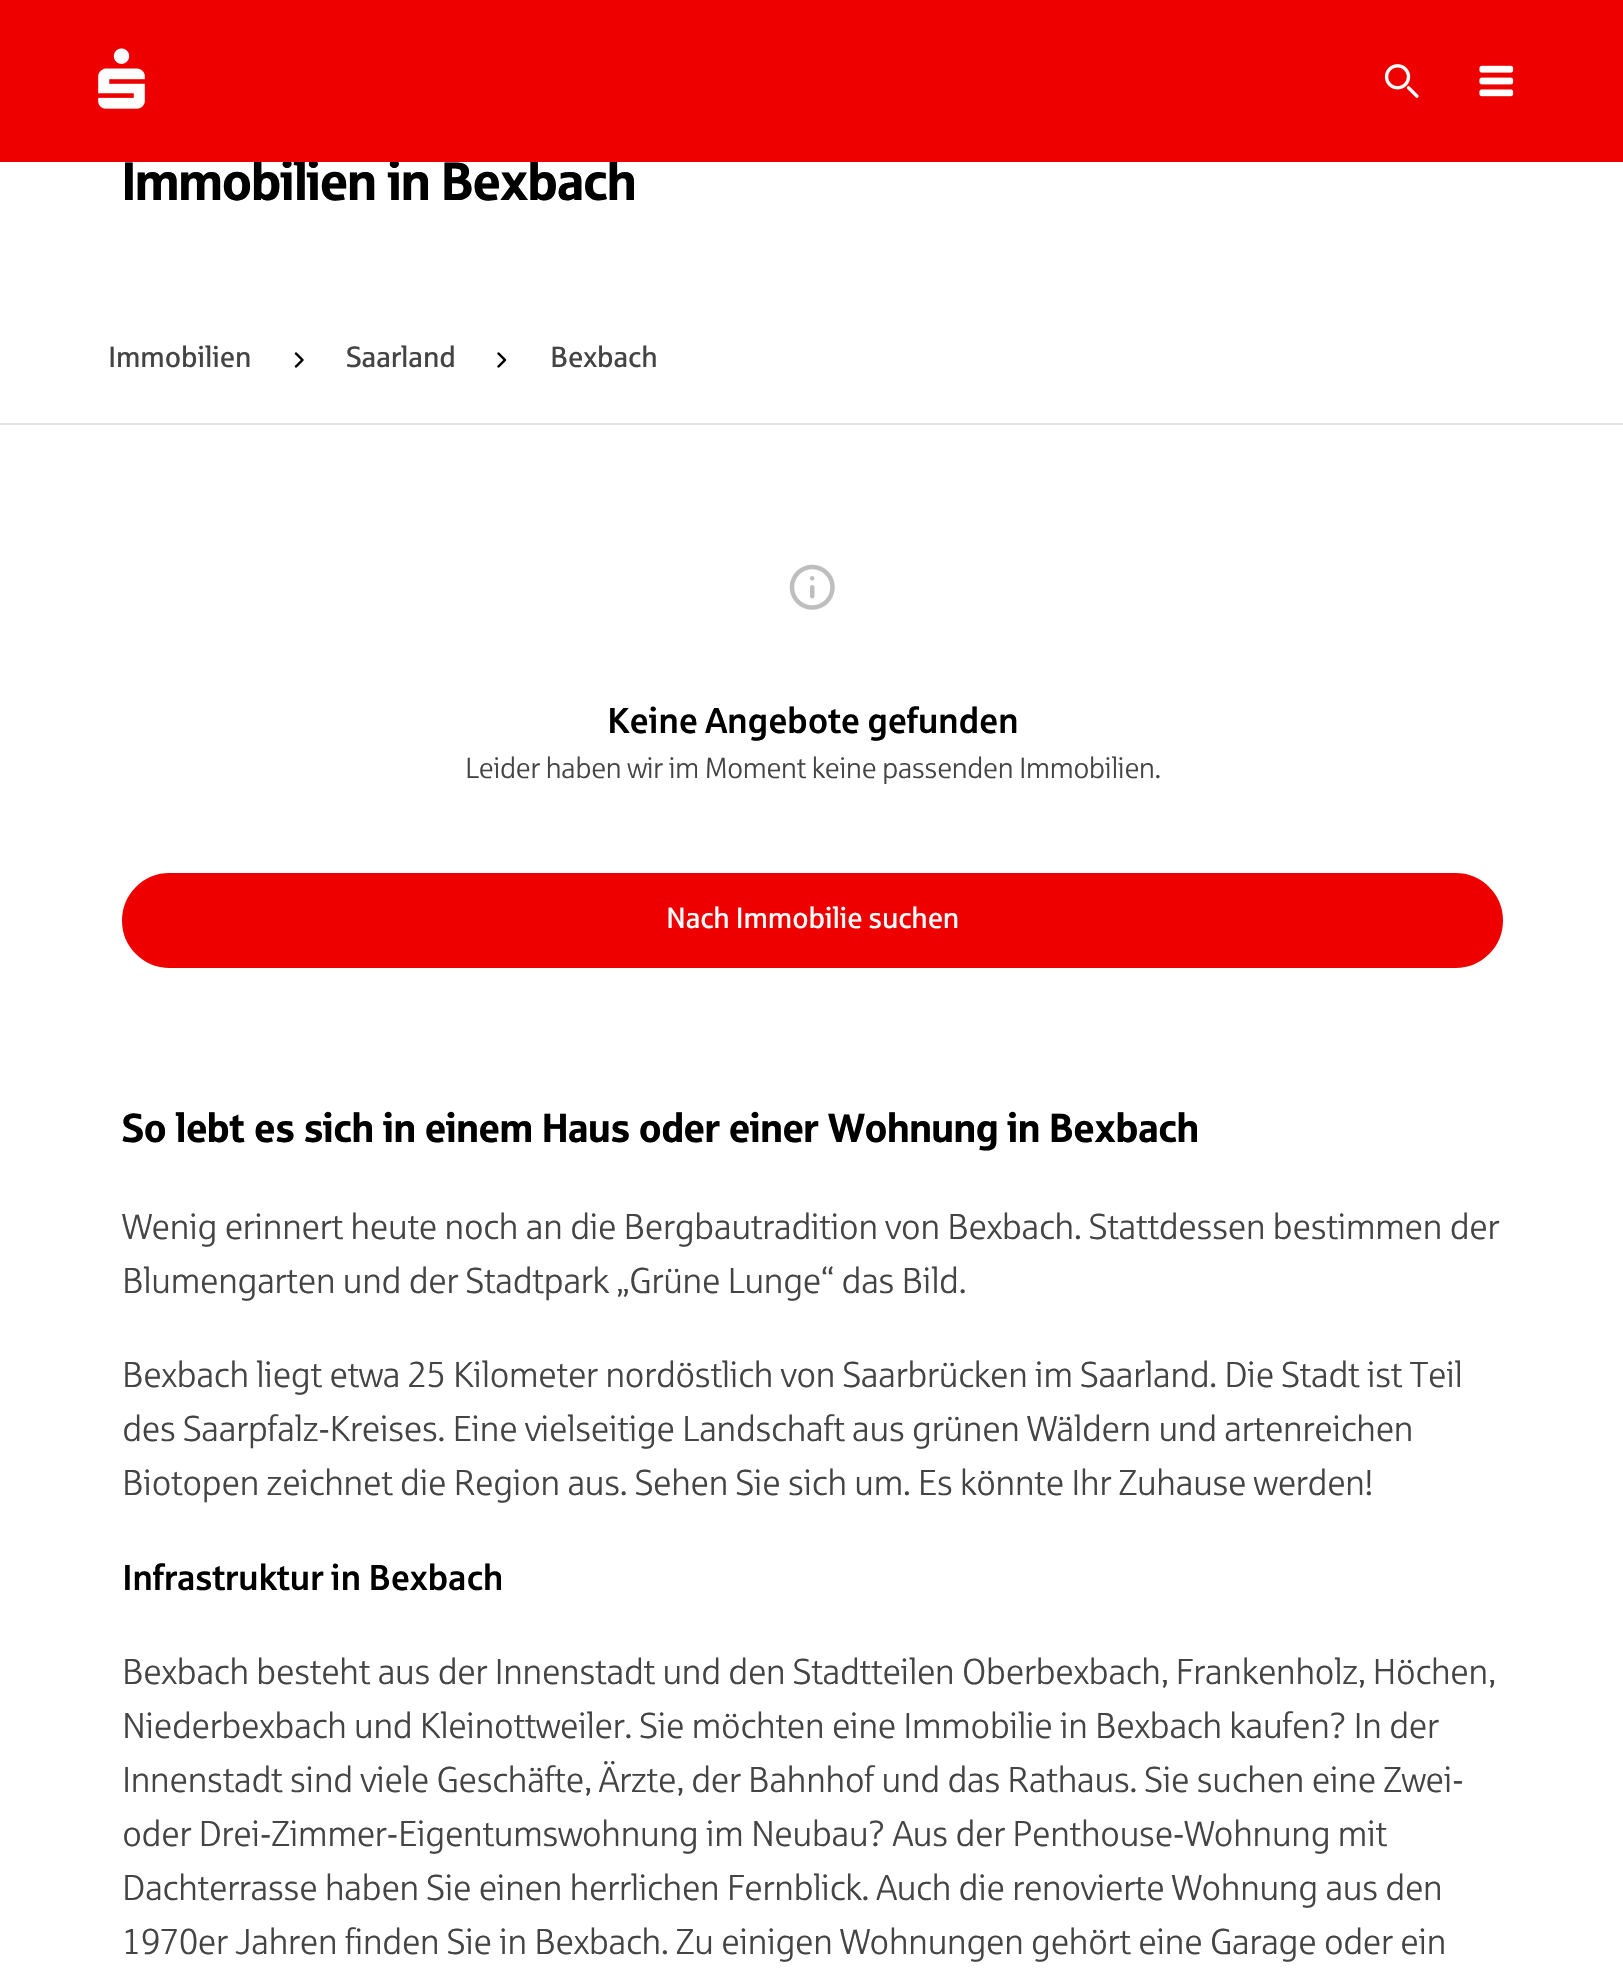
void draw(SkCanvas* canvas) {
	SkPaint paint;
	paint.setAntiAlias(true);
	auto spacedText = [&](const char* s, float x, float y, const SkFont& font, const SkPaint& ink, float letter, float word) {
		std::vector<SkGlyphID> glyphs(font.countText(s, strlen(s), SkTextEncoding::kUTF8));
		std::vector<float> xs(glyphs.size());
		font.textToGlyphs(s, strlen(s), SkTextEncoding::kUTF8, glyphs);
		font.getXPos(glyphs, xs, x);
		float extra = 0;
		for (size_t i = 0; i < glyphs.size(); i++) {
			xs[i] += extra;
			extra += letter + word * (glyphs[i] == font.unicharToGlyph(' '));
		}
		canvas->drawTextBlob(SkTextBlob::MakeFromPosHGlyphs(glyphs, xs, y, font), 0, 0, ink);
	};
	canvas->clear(0xffffffff);
	SkFont f1(fontMgr->matchFamilyStyle("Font", SkFontStyle::Bold()), 54);
	f1.setSubpixel(true);
	paint.setColor(0xff000000);
	spacedText("Immobilien in Bexbach", 122, 200, f1, paint, -0.72, 0);
	paint.setColor(0xffee0000);
	canvas->drawRect(SkRect::MakeXYWH(0, 0, 1623, 162), paint);
	canvas->drawImageRect(SkImages::DeferredFromEncodedData(SkData::MakeFromFileName("img1.png")), SkRect::MakeXYWH(98, 48, 47, 61), SkSamplingOptions());
	canvas->drawImageRect(SkImages::DeferredFromEncodedData(SkData::MakeFromFileName("img2.png")), SkRect::MakeXYWH(1384, 64, 35, 34), SkSamplingOptions());
	canvas->drawImageRect(SkImages::DeferredFromEncodedData(SkData::MakeFromFileName("img3.png")), SkRect::MakeXYWH(1479, 65, 35, 32), SkSamplingOptions());
	paint.setColor(0xffe3e3e3);
	canvas->drawRect(SkRect::MakeXYWH(0, 423, 1623, 2), paint);
	SkFont f2(fontMgr->matchFamilyStyle("Font", SkFontStyle::Normal()), 29.25);
	f2.setSubpixel(true);
	paint.setColor(0xff444444);
	spacedText("Immobilien", 108, 367, f2, paint, -0.6, 0);
	canvas->drawImageRect(SkImages::DeferredFromEncodedData(SkData::MakeFromFileName("img4.png")), SkRect::MakeXYWH(294, 352, 10, 16), SkSamplingOptions());
	spacedText("Saarland", 346, 367, f2, paint, -0.6, 0);
	canvas->drawImageRect(SkImages::DeferredFromEncodedData(SkData::MakeFromFileName("img5.png")), SkRect::MakeXYWH(497, 352, 10, 16), SkSamplingOptions());
	spacedText("Bexbach", 550, 367, f2, paint, -0.6, 0);
	canvas->drawImageRect(SkImages::DeferredFromEncodedData(SkData::MakeFromFileName("img6.png")), SkRect::MakeXYWH(789, 564, 46, 46), SkSamplingOptions());
	SkFont f3(fontMgr->matchFamilyStyle("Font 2", SkFontStyle::Normal()), 36);
	f3.setSubpixel(true);
	paint.setColor(0xff000000);
	spacedText("Keine Angebote gefunden", 607, 733, f3, paint, -0.75, 0);
	SkFont f4(fontMgr->matchFamilyStyle("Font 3", SkFontStyle::Normal()), 29.25);
	f4.setSubpixel(true);
	paint.setColor(0xff444444);
	spacedText("Leider haben wir im Moment keine passenden Immobilien.", 465, 778, f4, paint, -0.73, 0);
	paint.setColor(0xffee0000);
	canvas->drawRoundRect(SkRect::MakeXYWH(123, 874, 1379, 93), 46.5, 46.5, paint);
	paint.setStroke(true);
	paint.setStrokeWidth(2);
	canvas->drawRoundRect(SkRect::MakeXYWH(123, 874, 1379, 93), 46.5, 46.5, paint);
	paint.setStroke(false);
	paint.setColor(0xffffffff);
	spacedText("Nach Immobilie suchen", 666, 928, f2, paint, -0.6, 0);
	SkFont f5(fontMgr->matchFamilyStyle("Font", SkFontStyle::Bold()), 40.5);
	f5.setSubpixel(true);
	paint.setColor(0xff000000);
	canvas->drawString("So lebt es sich in einem Haus oder einer Wohnung in Bexbach", 122, 1142, f5, paint);
	SkFont f6(fontMgr->matchFamilyStyle("Font 3", SkFontStyle::Normal()), 36);
	f6.setSubpixel(true);
	paint.setColor(0xff444444);
	spacedText("Wenig erinnert heute noch an die Bergbautradition von Bexbach. Stattdessen bestimmen der", 122, 1239, f6, paint, -0.72, 0);
	spacedText("Blumengarten und der Stadtpark „Grüne Lunge“ das Bild.", 122, 1293, f6, paint, -0.72, 0);
	spacedText("Bexbach liegt etwa 25 Kilometer nordöstlich von Saarbrücken im Saarland. Die Stadt ist Teil", 122, 1387, f6, paint, -0.72, 0);
	spacedText("des Saarpfalz-Kreises. Eine vielseitige Landschaft aus grünen Wäldern und artenreichen", 122, 1441, f6, paint, -0.72, 0);
	spacedText("Biotopen zeichnet die Region aus. Sehen Sie sich um. Es könnte Ihr Zuhause werden!", 122, 1495, f6, paint, -0.72, 0);
	paint.setColor(0xff000000);
	spacedText("Infrastruktur in Bexbach", 122, 1590, f3, paint, -0.75, 0);
	paint.setColor(0xff444444);
	spacedText("Bexbach besteht aus der Innenstadt und den Stadtteilen Oberbexbach, Frankenholz, Höchen,", 122, 1684, f6, paint, -0.72, 0);
	spacedText("Niederbexbach und Kleinottweiler. Sie möchten eine Immobilie in Bexbach kaufen? In der", 122, 1738, f6, paint, -0.72, 0);
	spacedText("Innenstadt sind viele Geschäfte, Ärzte, der Bahnhof und das Rathaus. Sie suchen eine Zwei-", 122, 1792, f6, paint, -0.72, 0);
	spacedText("oder Drei-Zimmer-Eigentumswohnung im Neubau? Aus der Penthouse-Wohnung mit", 122, 1846, f6, paint, -0.72, 0);
	spacedText("Dachterrasse haben Sie einen herrlichen Fernblick. Auch die renovierte Wohnung aus den", 122, 1900, f6, paint, -0.72, 0);
	spacedText("1970er Jahren finden Sie in Bexbach. Zu einigen Wohnungen gehört eine Garage oder ein", 122, 1954, f6, paint, -0.72, 0);
}
